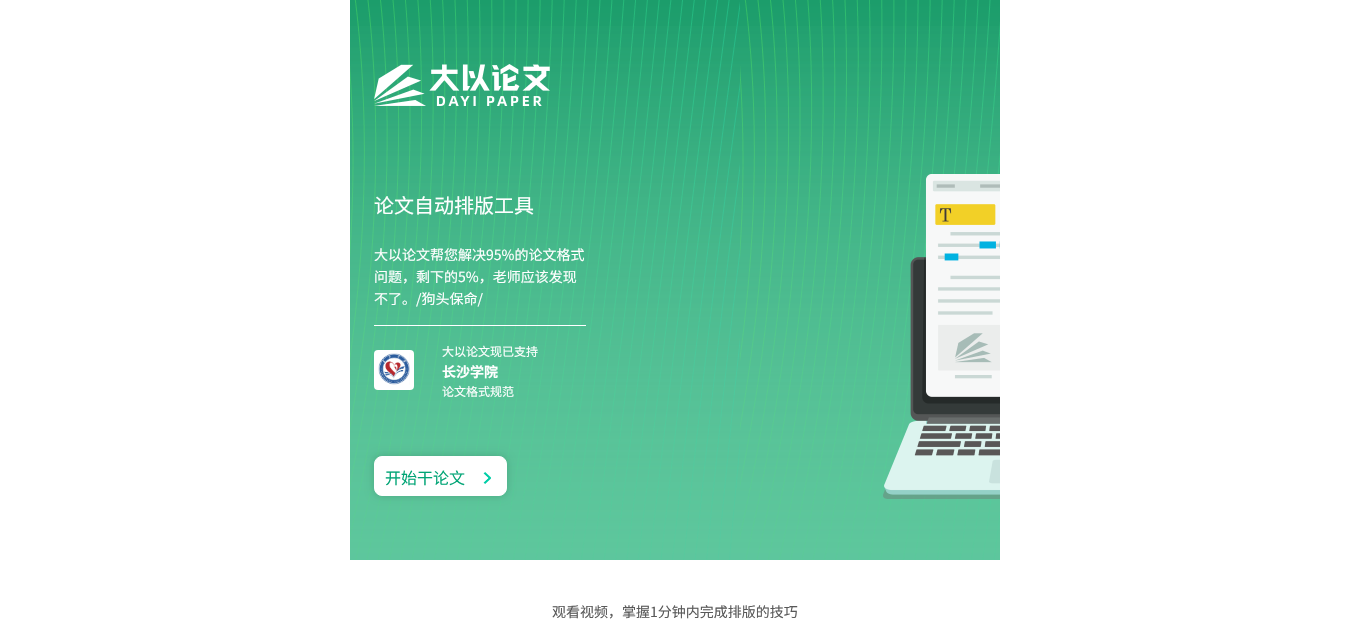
void draw(SkCanvas* canvas) {
	SkPaint paint;
	paint.setAntiAlias(true);
	canvas->clear(0xffffffff);
	{
		const SkColor colors[] = {0xff1c9d6b, 0xff5dc69c};
		const float stops[] = {0, 0.99};
		const SkPoint ends[] = {{675, 0}, {675, 560}};
		paint.setShader(SkGradientShader::MakeLinear(ends, colors, stops, 2, SkTileMode::kClamp));
		paint.setAlpha(255);
	}
	canvas->drawRect(SkRect::MakeXYWH(350, 0, 650, 560), paint);
	canvas->drawImageRect(SkImages::DeferredFromEncodedData(SkData::MakeFromFileName("img1.png")), SkRect::MakeXYWH(350, 0, 650, 560), SkSamplingOptions());
	{
		const SkColor colors[] = {0x005dc69c, 0xcc5dc69c};
		const float stops[] = {0, 0.99};
		const SkPoint ends[] = {{675, 0}, {675, 560}};
		paint.setShader(SkGradientShader::MakeLinear(ends, colors, stops, 2, SkTileMode::kClamp));
		paint.setAlpha(255);
	}
	canvas->drawRect(SkRect::MakeXYWH(350, 26, 650, 534), paint);
	canvas->drawImageRect(SkImages::DeferredFromEncodedData(SkData::MakeFromFileName("img2.png")), SkRect::MakeXYWH(374, 64, 176, 42), SkSamplingOptions());
	SkFont f1(fontMgr->matchFamilyStyle("Noto Sans SC", SkFontStyle::Normal()), 20);
	f1.setSubpixel(true);
	paint.setShader(nullptr);
	paint.setColor(0xffffffff);
	canvas->drawString("论文自动排版工具", 374, 213, f1, paint);
	canvas->drawImageRect(SkImages::DeferredFromEncodedData(SkData::MakeFromFileName("img3.png")), SkRect::MakeXYWH(883, 174, 117, 325), SkSamplingOptions());
	SkFont f2(fontMgr->matchFamilyStyle("Noto Sans SC", SkFontStyle::Normal()), 14);
	f2.setSubpixel(true);
	canvas->drawString("大以论文帮您解决95%的论文格式", 374, 260, f2, paint);
	canvas->drawString("问题，剩下的5%，老师应该发现", 374, 282, f2, paint);
	canvas->drawString("不了。/狗头保命/", 374, 304, f2, paint);
	canvas->drawRect(SkRect::MakeXYWH(374, 325, 212, 1), paint);
	canvas->drawRoundRect(SkRect::MakeXYWH(374, 350, 40, 40), 4, 4, paint);
	canvas->drawImageRect(SkImages::DeferredFromEncodedData(SkData::MakeFromFileName("img4.png")), SkRect::MakeXYWH(378, 353, 32, 32), SkSamplingOptions());
	SkFont f3(fontMgr->matchFamilyStyle("Noto Sans SC", SkFontStyle::Normal()), 12);
	f3.setSubpixel(true);
	canvas->drawString("大以论文现已支持", 442, 356, f3, paint);
	SkFont f4(fontMgr->matchFamilyStyle("Noto Sans SC", SkFontStyle::Bold()), 14);
	f4.setSubpixel(true);
	canvas->drawString("长沙学院", 442, 377, f4, paint);
	canvas->drawString("论文格式规范", 442, 396, f3, paint);
	paint.setColor(0x26000000);
	paint.setMaskFilter(SkMaskFilter::MakeBlur(kNormal_SkBlurStyle, 4));
	canvas->drawRoundRect(SkRect::MakeXYWH(374, 456, 133, 40), 8, 8, paint);
	paint.setMaskFilter(nullptr);
	paint.setColor(0xffffffff);
	canvas->drawRoundRect(SkRect::MakeXYWH(374.5, 456.5, 132, 39), 7.5, 7.5, paint);
	paint.setStroke(true);
	paint.setStrokeWidth(1);
	canvas->drawRoundRect(SkRect::MakeXYWH(374.5, 456.5, 132, 39), 7.5, 7.5, paint);
	SkFont f5(fontMgr->matchFamilyStyle("Noto Sans SC", SkFontStyle::Normal()), 16);
	f5.setSubpixel(true);
	paint.setStroke(false);
	paint.setColor(0xff00a475);
	canvas->drawString("开始干论文", 385, 484, f5, paint);
	canvas->drawImageRect(SkImages::DeferredFromEncodedData(SkData::MakeFromFileName("img5.png")), SkRect::MakeXYWH(483, 472, 8, 12), SkSamplingOptions());
	paint.setColor(0xff595959);
	canvas->drawString("观看视频，掌握1分钟内完成排版的技巧", 552, 617, f2, paint);
}
